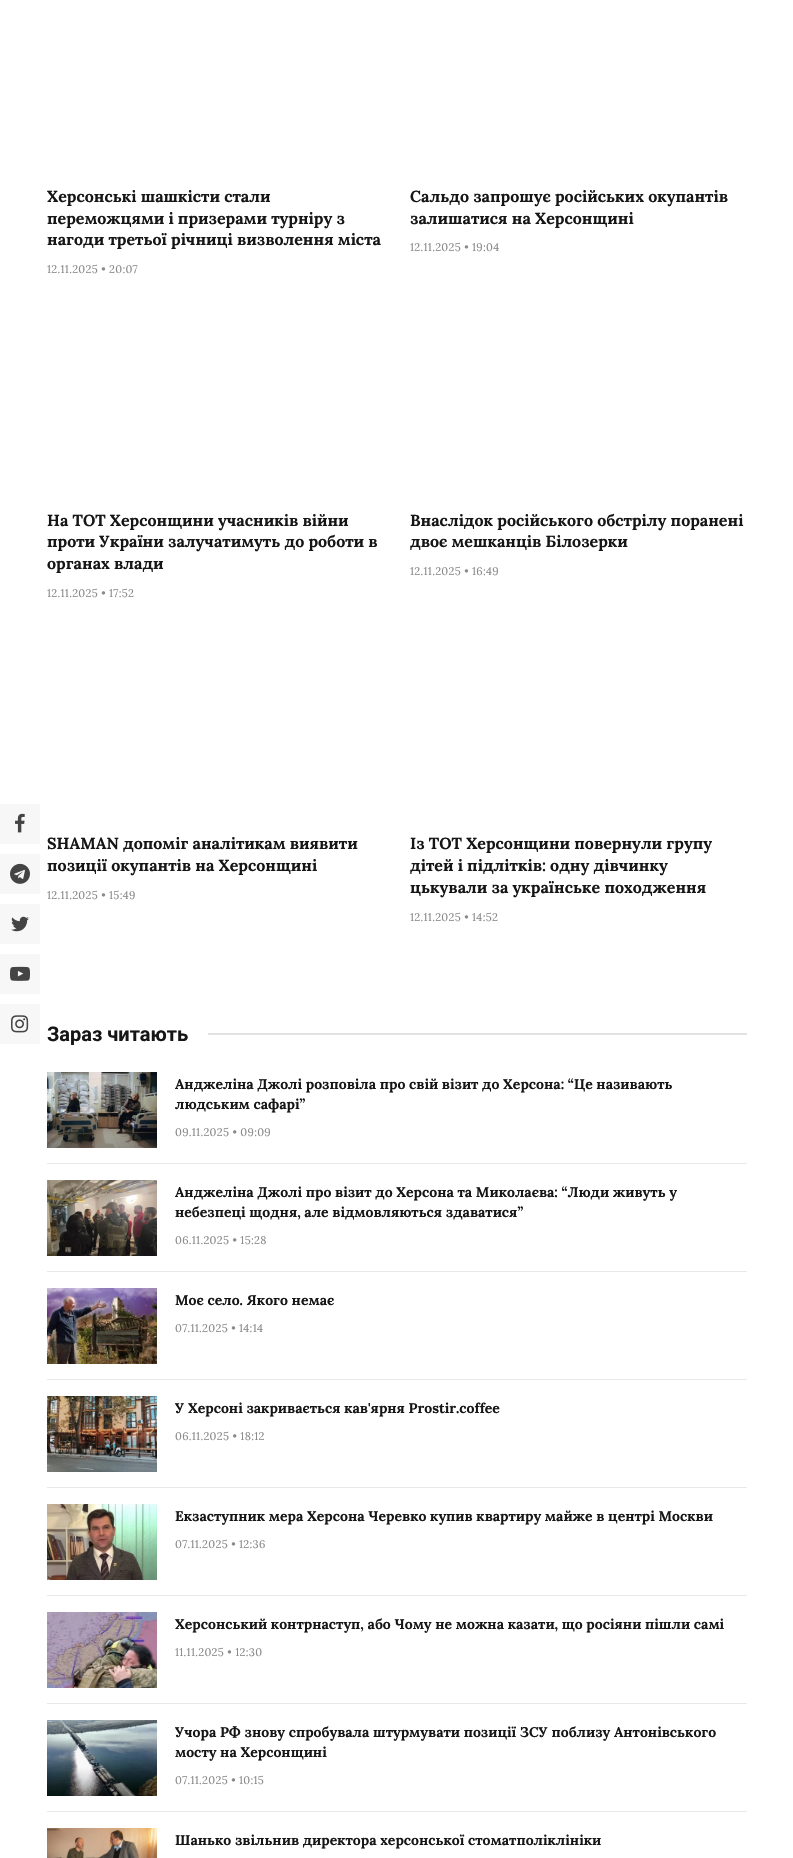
void draw(SkCanvas* canvas) {
	SkPaint paint;
	paint.setAntiAlias(true);
	auto spacedText = [&](const char* s, float x, float y, const SkFont& font, const SkPaint& ink, float letter, float word) {
		std::vector<SkGlyphID> glyphs(font.countText(s, strlen(s), SkTextEncoding::kUTF8));
		std::vector<float> xs(glyphs.size());
		font.textToGlyphs(s, strlen(s), SkTextEncoding::kUTF8, glyphs);
		font.getXPos(glyphs, xs, x);
		float extra = 0;
		for (size_t i = 0; i < glyphs.size(); i++) {
			xs[i] += extra;
			extra += letter + word * (glyphs[i] == font.unicharToGlyph(' '));
		}
		canvas->drawTextBlob(SkTextBlob::MakeFromPosHGlyphs(glyphs, xs, y, font), 0, 0, ink);
	};
	canvas->clear(0xffffffff);
	paint.setColor(0xfff7f7f7);
	canvas->drawRect(SkRect::MakeXYWH(0, 804, 40, 40), paint);
	canvas->drawImageRect(SkImages::DeferredFromEncodedData(SkData::MakeFromFileName("img1.png")), SkRect::MakeXYWH(15, 813, 10, 20), SkSamplingOptions());
	canvas->drawRect(SkRect::MakeXYWH(0, 854, 40, 40), paint);
	canvas->drawImageRect(SkImages::DeferredFromEncodedData(SkData::MakeFromFileName("img2.png")), SkRect::MakeXYWH(10, 863, 20, 21), SkSamplingOptions());
	canvas->drawRect(SkRect::MakeXYWH(0, 904, 40, 40), paint);
	canvas->drawImageRect(SkImages::DeferredFromEncodedData(SkData::MakeFromFileName("img3.png")), SkRect::MakeXYWH(11, 916, 18, 16), SkSamplingOptions());
	canvas->drawRect(SkRect::MakeXYWH(0, 954, 40, 40), paint);
	canvas->drawImageRect(SkImages::DeferredFromEncodedData(SkData::MakeFromFileName("img4.png")), SkRect::MakeXYWH(10, 966, 20, 15), SkSamplingOptions());
	canvas->drawRect(SkRect::MakeXYWH(0, 1004, 40, 40), paint);
	canvas->drawImageRect(SkImages::DeferredFromEncodedData(SkData::MakeFromFileName("img5.png")), SkRect::MakeXYWH(11, 1015, 18, 18), SkSamplingOptions());
	SkFont f1(fontMgr->matchFamilyStyle("Lora", SkFontStyle::Bold()), 16);
	f1.setSubpixel(true);
	paint.setColor(0xff161616);
	canvas->drawString("Херсонські шашкісти стали", 47, 202, f1, paint);
	canvas->drawString("переможцями і призерами турніру з", 47, 224, f1, paint);
	canvas->drawString("нагоди третьої річниці визволення міста", 47, 245, f1, paint);
	SkFont f2(fontMgr->matchFamilyStyle("Lora", SkFontStyle::Normal()), 11);
	f2.setSubpixel(true);
	paint.setColor(0xff8a8a8a);
	spacedText("12.11.2025 • 20:07", 47, 273, f2, paint, 0.3, 0);
	paint.setColor(0xff161616);
	canvas->drawString("Сальдо запрошує російських окупантів", 410, 202, f1, paint);
	canvas->drawString("залишатися на Херсонщині", 410, 224, f1, paint);
	paint.setColor(0xff8a8a8a);
	spacedText("12.11.2025 • 19:04", 410, 251, f2, paint, 0.3, 0);
	paint.setColor(0xff161616);
	canvas->drawString("На ТОТ Херсонщини учасників війни", 47, 526, f1, paint);
	canvas->drawString("проти України залучатимуть до роботи в", 47, 547, f1, paint);
	canvas->drawString("органах влади", 47, 569, f1, paint);
	paint.setColor(0xff8a8a8a);
	spacedText("12.11.2025 • 17:52", 47, 597, f2, paint, 0.3, 0);
	paint.setColor(0xff161616);
	canvas->drawString("Внаслідок російського обстрілу поранені", 410, 526, f1, paint);
	canvas->drawString("двоє мешканців Білозерки", 410, 547, f1, paint);
	paint.setColor(0xff8a8a8a);
	spacedText("12.11.2025 • 16:49", 410, 575, f2, paint, 0.3, 0);
	paint.setColor(0xff161616);
	canvas->drawString("SHAMAN допоміг аналітикам виявити", 47, 849, f1, paint);
	canvas->drawString("позиції окупантів на Херсонщині", 47, 871, f1, paint);
	paint.setColor(0xff8a8a8a);
	spacedText("12.11.2025 • 15:49", 47, 899, f2, paint, 0.3, 0);
	paint.setColor(0xff161616);
	canvas->drawString("Із ТОТ Херсонщини повернули групу", 410, 849, f1, paint);
	canvas->drawString("дітей і підлітків: одну дівчинку", 410, 871, f1, paint);
	canvas->drawString("цькували за українське походження", 410, 893, f1, paint);
	paint.setColor(0xff8a8a8a);
	spacedText("12.11.2025 • 14:52", 410, 921, f2, paint, 0.3, 0);
	SkFont f3(fontMgr->matchFamilyStyle("Roboto", SkFontStyle::Bold()), 20);
	f3.setSubpixel(true);
	paint.setColor(0xff161616);
	canvas->drawString("Зараз читають", 47, 1041, f3, paint);
	paint.setColor(0xffe2e2e2);
	canvas->drawRect(SkRect::MakeXYWH(208, 1033, 539, 2), paint);
	canvas->drawImageRect(SkImages::DeferredFromEncodedData(SkData::MakeFromFileName("img6.png")), SkRect::MakeXYWH(47, 1072, 110, 76), SkSamplingOptions());
	SkFont f4(fontMgr->matchFamilyStyle("Lora", SkFontStyle::Bold()), 14);
	f4.setSubpixel(true);
	paint.setColor(0xff161616);
	canvas->drawString("Анджеліна Джолі розповіла про свій візит до Херсона: “Це називають", 175, 1089, f4, paint);
	canvas->drawString("людським сафарі”", 175, 1109, f4, paint);
	paint.setColor(0xff8a8a8a);
	spacedText("09.11.2025 • 09:09", 175, 1136, f2, paint, 0.3, 0);
	paint.setColor(0xffe8e8e8);
	canvas->drawRect(SkRect::MakeXYWH(47, 1163, 700, 1), paint);
	canvas->drawImageRect(SkImages::DeferredFromEncodedData(SkData::MakeFromFileName("img7.png")), SkRect::MakeXYWH(47, 1180, 110, 76), SkSamplingOptions());
	paint.setColor(0xff161616);
	canvas->drawString("Анджеліна Джолі про візит до Херсона та Миколаєва: “Люди живуть у", 175, 1197, f4, paint);
	canvas->drawString("небезпеці щодня, але відмовляються здаватися”", 175, 1217, f4, paint);
	paint.setColor(0xff8a8a8a);
	spacedText("06.11.2025 • 15:28", 175, 1244, f2, paint, 0.3, 0);
	paint.setColor(0xffe8e8e8);
	canvas->drawRect(SkRect::MakeXYWH(47, 1271, 700, 1), paint);
	canvas->drawImageRect(SkImages::DeferredFromEncodedData(SkData::MakeFromFileName("img8.png")), SkRect::MakeXYWH(47, 1288, 110, 76), SkSamplingOptions());
	paint.setColor(0xff161616);
	canvas->drawString("Моє село. Якого немає", 175, 1305, f4, paint);
	paint.setColor(0xff8a8a8a);
	spacedText("07.11.2025 • 14:14", 175, 1332, f2, paint, 0.3, 0);
	paint.setColor(0xffe8e8e8);
	canvas->drawRect(SkRect::MakeXYWH(47, 1379, 700, 1), paint);
	canvas->drawImageRect(SkImages::DeferredFromEncodedData(SkData::MakeFromFileName("img9.png")), SkRect::MakeXYWH(47, 1396, 110, 76), SkSamplingOptions());
	paint.setColor(0xff161616);
	canvas->drawString("У Херсоні закривається кав'ярня Prostir.coffee", 175, 1413, f4, paint);
	paint.setColor(0xff8a8a8a);
	spacedText("06.11.2025 • 18:12", 175, 1440, f2, paint, 0.3, 0);
	paint.setColor(0xffe8e8e8);
	canvas->drawRect(SkRect::MakeXYWH(47, 1487, 700, 1), paint);
	canvas->drawImageRect(SkImages::DeferredFromEncodedData(SkData::MakeFromFileName("img10.png")), SkRect::MakeXYWH(47, 1504, 110, 76), SkSamplingOptions());
	paint.setColor(0xff161616);
	canvas->drawString("Екзаступник мера Херсона Черевко купив квартиру майже в центрі Москви", 175, 1521, f4, paint);
	paint.setColor(0xff8a8a8a);
	spacedText("07.11.2025 • 12:36", 175, 1548, f2, paint, 0.3, 0);
	paint.setColor(0xffe8e8e8);
	canvas->drawRect(SkRect::MakeXYWH(47, 1595, 700, 1), paint);
	canvas->drawImageRect(SkImages::DeferredFromEncodedData(SkData::MakeFromFileName("img11.png")), SkRect::MakeXYWH(47, 1612, 110, 76), SkSamplingOptions());
	paint.setColor(0xff161616);
	canvas->drawString("Херсонський контрнаступ, або Чому не можна казати, що росіяни пішли самі", 175, 1629, f4, paint);
	paint.setColor(0xff8a8a8a);
	spacedText("11.11.2025 • 12:30", 175, 1656, f2, paint, 0.3, 0);
	paint.setColor(0xffe8e8e8);
	canvas->drawRect(SkRect::MakeXYWH(47, 1703, 700, 1), paint);
	canvas->drawImageRect(SkImages::DeferredFromEncodedData(SkData::MakeFromFileName("img12.png")), SkRect::MakeXYWH(47, 1720, 110, 76), SkSamplingOptions());
	paint.setColor(0xff161616);
	canvas->drawString("Учора РФ знову спробувала штурмувати позиції ЗСУ поблизу Антонівського", 175, 1737, f4, paint);
	canvas->drawString("мосту на Херсонщині", 175, 1757, f4, paint);
	paint.setColor(0xff8a8a8a);
	spacedText("07.11.2025 • 10:15", 175, 1784, f2, paint, 0.3, 0);
	paint.setColor(0xffe8e8e8);
	canvas->drawRect(SkRect::MakeXYWH(47, 1811, 700, 1), paint);
	canvas->drawImageRect(SkImages::DeferredFromEncodedData(SkData::MakeFromFileName("img13.png")), SkRect::MakeXYWH(47, 1828, 110, 30), SkSamplingOptions());
	paint.setColor(0xff161616);
	canvas->drawString("Шанько звільнив директора херсонської стоматполіклініки", 175, 1845, f4, paint);
}
